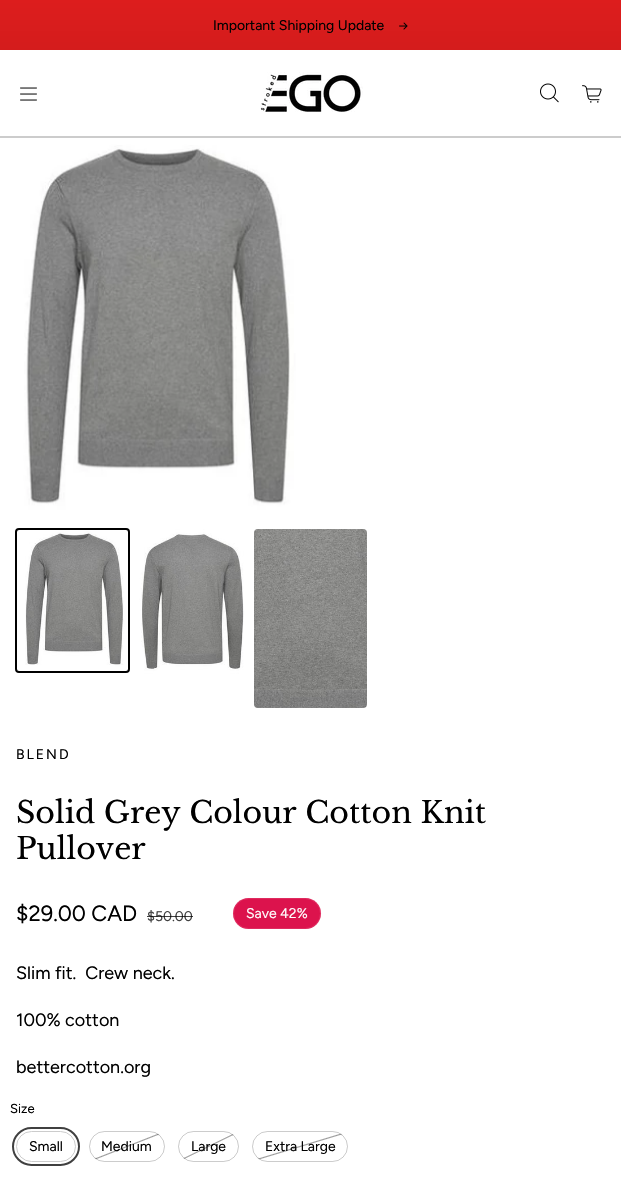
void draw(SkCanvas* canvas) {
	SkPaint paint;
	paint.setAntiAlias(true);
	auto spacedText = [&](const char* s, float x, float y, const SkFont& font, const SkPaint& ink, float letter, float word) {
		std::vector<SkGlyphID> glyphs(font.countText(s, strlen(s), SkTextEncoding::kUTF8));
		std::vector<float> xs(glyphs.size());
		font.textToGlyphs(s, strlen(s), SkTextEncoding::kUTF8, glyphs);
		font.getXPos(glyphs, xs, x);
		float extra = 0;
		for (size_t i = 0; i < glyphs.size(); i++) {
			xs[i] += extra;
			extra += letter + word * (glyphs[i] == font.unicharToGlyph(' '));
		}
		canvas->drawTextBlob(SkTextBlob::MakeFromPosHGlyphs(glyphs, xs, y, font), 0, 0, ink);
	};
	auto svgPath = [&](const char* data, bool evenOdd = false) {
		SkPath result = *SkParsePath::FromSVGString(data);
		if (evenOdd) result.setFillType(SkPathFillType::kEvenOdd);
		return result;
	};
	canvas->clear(0xffffffff);
	{
		const SkColor colors[] = {0xff0a0a0a, 0xffdd1d1d};
		const float stops[] = {0, 1};
		const SkPoint ends[] = {{311, 1183}, {311, 0}};
		paint.setShader(SkGradientShader::MakeLinear(ends, colors, stops, 2, SkTileMode::kClamp));
		paint.setAlpha(255);
	}
	canvas->drawRect(SkRect::MakeXYWH(0, 0, 621, 50), paint);
	SkFont f1(fontMgr->matchFamilyStyle("Figtree", SkFontStyle::Normal()), 14);
	f1.setSubpixel(true);
	paint.setShader(nullptr);
	paint.setColor(0xff000000);
	canvas->drawString("Important Shipping Update", 213, 30, f1, paint);
	canvas->drawImageRect(SkImages::DeferredFromEncodedData(SkData::MakeFromFileName("img1.png")), SkRect::MakeXYWH(399, 22, 9, 8), SkSamplingOptions());
	canvas->drawImageRect(SkImages::DeferredFromEncodedData(SkData::MakeFromFileName("img2.png")), SkRect::MakeXYWH(20, 87, 17, 14), SkSamplingOptions());
	canvas->drawImageRect(SkImages::DeferredFromEncodedData(SkData::MakeFromFileName("img3.png")), SkRect::MakeXYWH(260, 72, 103, 40), SkSamplingOptions());
	canvas->drawImageRect(SkImages::DeferredFromEncodedData(SkData::MakeFromFileName("img4.png")), SkRect::MakeXYWH(540, 83, 19, 20), SkSamplingOptions());
	canvas->drawImageRect(SkImages::DeferredFromEncodedData(SkData::MakeFromFileName("img5.png")), SkRect::MakeXYWH(582, 85, 20, 18), SkSamplingOptions());
	paint.setColor(0xffcccccc);
	canvas->drawRect(SkRect::MakeXYWH(0, 136, 621, 2), paint);
	canvas->drawImageRect(SkImages::DeferredFromEncodedData(SkData::MakeFromFileName("img6.png")), SkRect::MakeXYWH(0, 138, 306, 385), SkSamplingOptions());
	canvas->drawImageRect(SkImages::DeferredFromEncodedData(SkData::MakeFromFileName("img7.png")), SkRect::MakeXYWH(17, 530, 111, 141), SkSamplingOptions());
	paint.setStroke(true);
	paint.setStrokeWidth(2);
	paint.setColor(0xff000000);
	canvas->drawRoundRect(SkRect::MakeXYWH(16, 529, 113, 143), 3, 3, paint);
	canvas->drawImageRect(SkImages::DeferredFromEncodedData(SkData::MakeFromFileName("img8.png")), SkRect::MakeXYWH(135, 529, 113, 146), SkSamplingOptions());
	canvas->drawImageRect(SkImages::DeferredFromEncodedData(SkData::MakeFromFileName("img9.png")), SkRect::MakeXYWH(254, 529, 113, 179), SkSamplingOptions());
	paint.setStroke(false);
	spacedText("BLEND", 16, 759, f1, paint, 2, 0);
	SkFont f2(fontMgr->matchFamilyStyle("Libre Baskerville", SkFontStyle::Normal()), 30);
	f2.setSubpixel(true);
	canvas->drawString("Solid Grey Colour Cotton Knit", 16, 823, f2, paint);
	canvas->drawString("Pullover", 16, 859, f2, paint);
	SkFont f3(fontMgr->matchFamilyStyle("Figtree", SkFontStyle::Normal()), 22);
	f3.setSubpixel(true);
	canvas->drawString("$29.00 CAD", 16, 921, f3, paint);
	paint.setColor(0xff404040);
	canvas->drawString("$50.00", 147, 921, f1, paint);
	paint.setColor(0xbf000000);
	canvas->drawRect(SkRect::MakeXYWH(147, 916, 46, 1), paint);
	paint.setColor(0xffdc134d);
	canvas->drawRoundRect(SkRect::MakeXYWH(233, 898, 88, 31), 15.5, 15.5, paint);
	paint.setStroke(true);
	paint.setStrokeWidth(1);
	paint.setColor(0x1affffff);
	canvas->drawRoundRect(SkRect::MakeXYWH(233.5, 898.5, 87, 30), 15, 15, paint);
	paint.setStroke(false);
	paint.setColor(0xffffffff);
	canvas->drawString("Save 42%", 246, 918, f1, paint);
	SkFont f4(fontMgr->matchFamilyStyle("Figtree", SkFontStyle::Normal()), 18);
	f4.setSubpixel(true);
	paint.setColor(0xff000000);
	canvas->drawString("Slim fit.  Crew neck.", 16, 979, f4, paint);
	canvas->drawString("100% cotton", 16, 1026, f4, paint);
	canvas->drawString("bettercotton.org", 16, 1073, f4, paint);
	SkFont f5(fontMgr->matchFamilyStyle("Figtree", SkFontStyle::Normal()), 13);
	f5.setSubpixel(true);
	canvas->drawString("Size", 10, 1113, f5, paint);
	paint.setStroke(true);
	paint.setColor(0xffcccccc);
	canvas->drawRoundRect(SkRect::MakeXYWH(16.5, 1131.5, 59, 30), 15, 15, paint);
	paint.setStrokeWidth(2);
	paint.setColor(0xff404040);
	canvas->drawRoundRect(SkRect::MakeXYWH(13, 1128, 66, 37), 18.5, 18.5, paint);
	paint.setStroke(false);
	paint.setColor(0xff000000);
	canvas->drawString("Small", 29, 1151, f1, paint);
	canvas->save();
	canvas->clipPath(svgPath("M104.5 1131H149.5C158 1131 165 1138 165 1146.5C165 1155 158 1162 149.5 1162H104.5C96 1162 89 1155 89 1146.5C89 1138 96 1131 104.5 1131Z"), true);
	{
		const SkColor colors[] = {0xffffffff, 0xff999999, 0xffffffff};
		const float stops[] = {0.48, 0.5, 0.52};
		const SkPoint ends[] = {{117, 1121}, {137, 1172}};
		paint.setShader(SkGradientShader::MakeLinear(ends, colors, stops, 3, SkTileMode::kClamp));
		paint.setAlpha(255);
	}
	canvas->drawRect(SkRect::MakeXYWH(90, 1132, 74, 29), paint);
	canvas->restore();
	paint.setStroke(true);
	paint.setStrokeWidth(1);
	paint.setShader(nullptr);
	paint.setColor(0x33000000);
	canvas->drawRoundRect(SkRect::MakeXYWH(89.5, 1131.5, 75, 30), 15, 15, paint);
	paint.setStroke(false);
	paint.setColor(0xff000000);
	canvas->drawString("Medium", 101, 1151, f1, paint);
	canvas->save();
	canvas->clipPath(svgPath("M193.5 1131H223.5C232 1131 239 1138 239 1146.5C239 1155 232 1162 223.5 1162H193.5C185 1162 178 1155 178 1146.5C178 1138 185 1131 193.5 1131Z"), true);
	{
		const SkColor colors[] = {0xffffffff, 0xff999999, 0xffffffff};
		const float stops[] = {0.48, 0.5, 0.52};
		const SkPoint ends[] = {{197, 1123}, {220, 1170}};
		paint.setShader(SkGradientShader::MakeLinear(ends, colors, stops, 3, SkTileMode::kClamp));
		paint.setAlpha(255);
	}
	canvas->drawRect(SkRect::MakeXYWH(179, 1132, 59, 29), paint);
	canvas->restore();
	paint.setStroke(true);
	paint.setShader(nullptr);
	paint.setColor(0x33000000);
	canvas->drawRoundRect(SkRect::MakeXYWH(178.5, 1131.5, 60, 30), 15, 15, paint);
	paint.setStroke(false);
	paint.setColor(0xff000000);
	canvas->drawString("Large", 191, 1151, f1, paint);
	canvas->save();
	canvas->clipPath(svgPath("M267.5 1131H332.5C341 1131 348 1138 348 1146.5C348 1155 341 1162 332.5 1162H267.5C259 1162 252 1155 252 1146.5C252 1138 259 1131 267.5 1131Z"), true);
	{
		const SkColor colors[] = {0xffffffff, 0xff999999, 0xffffffff};
		const float stops[] = {0.48, 0.5, 0.52};
		const SkPoint ends[] = {{292, 1120}, {308, 1173}};
		paint.setShader(SkGradientShader::MakeLinear(ends, colors, stops, 3, SkTileMode::kClamp));
		paint.setAlpha(255);
	}
	canvas->drawRect(SkRect::MakeXYWH(253, 1132, 94, 29), paint);
	canvas->restore();
	paint.setStroke(true);
	paint.setShader(nullptr);
	paint.setColor(0x33000000);
	canvas->drawRoundRect(SkRect::MakeXYWH(252.5, 1131.5, 95, 30), 15, 15, paint);
	paint.setStroke(false);
	paint.setColor(0xff000000);
	canvas->drawString("Extra Large", 265, 1151, f1, paint);
}
